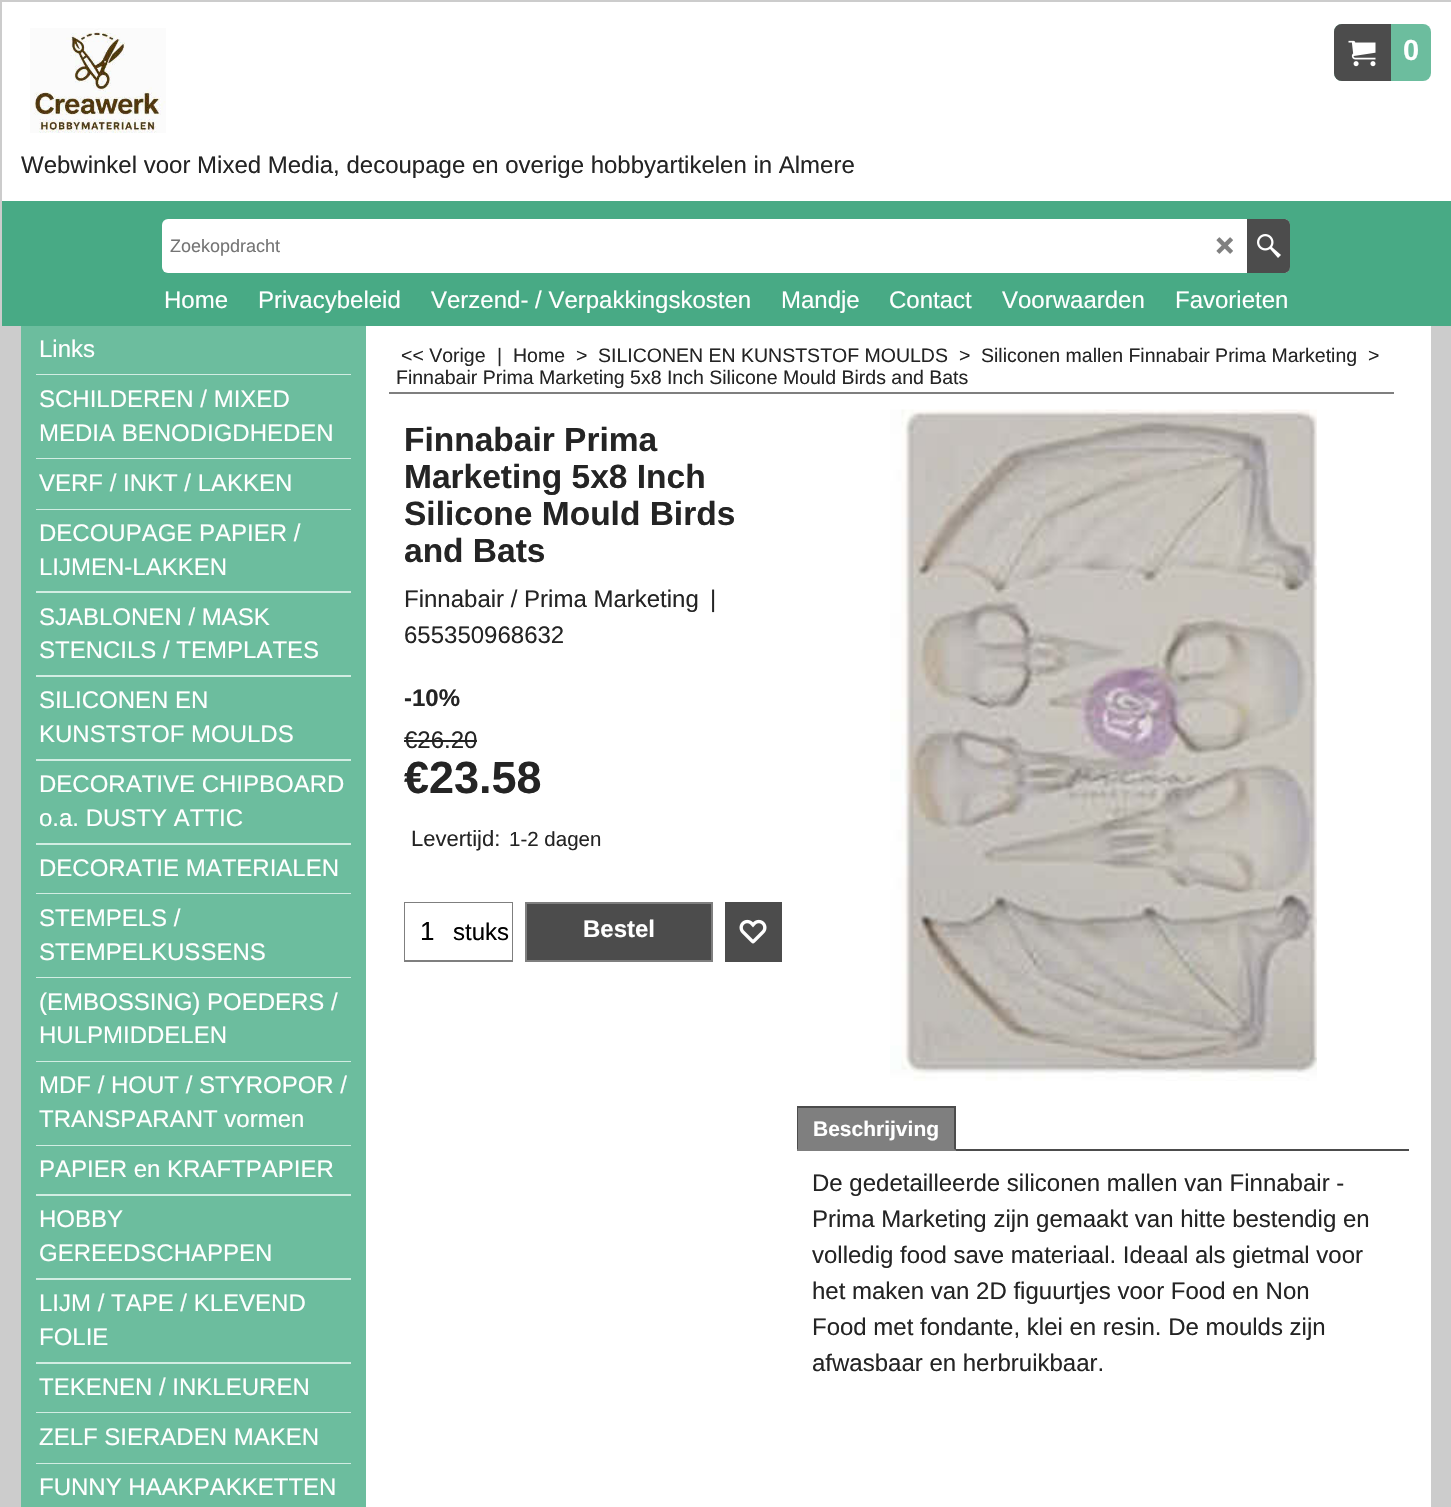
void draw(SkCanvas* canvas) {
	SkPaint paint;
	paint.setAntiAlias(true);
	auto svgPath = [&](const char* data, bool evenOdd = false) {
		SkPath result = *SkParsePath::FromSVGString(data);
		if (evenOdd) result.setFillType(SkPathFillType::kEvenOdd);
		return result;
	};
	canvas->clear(0xffcccccc);
	paint.setColor(0xffffffff);
	canvas->drawRect(SkRect::MakeXYWH(2, 2, 1449, 199), paint);
	paint.setColor(0xff6cbd9e);
	canvas->drawRoundRect(SkRect::MakeXYWH(1334, 24, 97, 57), 8, 8, paint);
	paint.setColor(0xff4c4c4c);
	canvas->drawPath(svgPath("M1342 25H1390V80H1342C1338 80 1335 77 1335 73V32C1335 28 1338 25 1342 25Z"), paint);
	paint.setStroke(true);
	paint.setStrokeWidth(2);
	canvas->drawPath(svgPath("M1342 25H1390V80H1342C1338 80 1335 77 1335 73V32C1335 28 1338 25 1342 25Z"), paint);
	canvas->drawImageRect(SkImages::DeferredFromEncodedData(SkData::MakeFromFileName("img1.png")), SkRect::MakeXYWH(1348, 40, 28, 27), SkSamplingOptions());
	SkFont f1(fontMgr->matchFamilyStyle("Liberation Sans", SkFontStyle::Bold()), 29);
	f1.setSubpixel(true);
	paint.setStroke(false);
	paint.setColor(0xffffffff);
	canvas->drawString("0", 1403, 60, f1, paint);
	canvas->drawImageRect(SkImages::DeferredFromEncodedData(SkData::MakeFromFileName("img2.png")), SkRect::MakeXYWH(30, 28, 136, 105), SkSamplingOptions());
	SkFont f2(fontMgr->matchFamilyStyle("Liberation Sans", SkFontStyle::Normal()), 24);
	f2.setSubpixel(true);
	paint.setColor(0xff242424);
	canvas->drawString("Webwinkel voor Mixed Media, decoupage en overige hobbyartikelen in Almere", 21, 173, f2, paint);
	paint.setColor(0xff48aa85);
	canvas->drawRect(SkRect::MakeXYWH(2, 201, 1449, 125), paint);
	paint.setColor(0xffffffff);
	canvas->drawRoundRect(SkRect::MakeXYWH(162, 219, 1128, 54), 6, 6, paint);
	SkFont f3(fontMgr->matchFamilyStyle("Liberation Sans", SkFontStyle::Normal()), 18);
	f3.setSubpixel(true);
	paint.setColor(0xff757575);
	canvas->drawString("Zoekopdracht", 170, 252, f3, paint);
	canvas->drawImageRect(SkImages::DeferredFromEncodedData(SkData::MakeFromFileName("img3.png")), SkRect::MakeXYWH(1216, 237, 17, 17), SkSamplingOptions());
	paint.setColor(0xff4c4c4c);
	canvas->drawPath(svgPath("M1247 219H1284C1287.5 219 1290 221.5 1290 225V267C1290 270.5 1287.5 273 1284 273H1247Z"), paint);
	canvas->drawImageRect(SkImages::DeferredFromEncodedData(SkData::MakeFromFileName("img4.png")), SkRect::MakeXYWH(1257, 234, 24, 24), SkSamplingOptions());
	paint.setColor(0xffffffff);
	canvas->drawString("Home", 164, 308, f2, paint);
	canvas->drawString("Privacybeleid", 258, 308, f2, paint);
	canvas->drawString("Verzend- / Verpakkingskosten", 431, 308, f2, paint);
	canvas->drawString("Mandje", 781, 308, f2, paint);
	canvas->drawString("Contact", 889, 308, f2, paint);
	canvas->drawString("Voorwaarden", 1002, 308, f2, paint);
	canvas->drawString("Favorieten", 1175, 308, f2, paint);
	canvas->drawRect(SkRect::MakeXYWH(366, 326, 1065, 1181), paint);
	paint.setColor(0xff6cbd9e);
	canvas->drawRect(SkRect::MakeXYWH(21, 326, 345, 1181), paint);
	paint.setColor(0xffd2ede3);
	canvas->drawRect(SkRect::MakeXYWH(36, 374, 315, 1), paint);
	paint.setColor(0xffffffff);
	canvas->drawString("Links", 39, 357, f2, paint);
	paint.setColor(0xffd2ede3);
	canvas->drawRect(SkRect::MakeXYWH(36, 458, 315, 1), paint);
	paint.setColor(0xffffffff);
	canvas->drawString("SCHILDEREN / MIXED", 39, 407, f2, paint);
	canvas->drawString("MEDIA BENODIGDHEDEN", 39, 441, f2, paint);
	paint.setColor(0xffd2ede3);
	canvas->drawRect(SkRect::MakeXYWH(36, 509, 315, 1), paint);
	paint.setColor(0xffffffff);
	canvas->drawString("VERF / INKT / LAKKEN", 39, 491, f2, paint);
	paint.setColor(0xffd2ede3);
	canvas->drawRect(SkRect::MakeXYWH(36, 591, 315, 2), paint);
	paint.setColor(0xffffffff);
	canvas->drawString("DECOUPAGE PAPIER /", 39, 541, f2, paint);
	canvas->drawString("LIJMEN-LAKKEN", 39, 575, f2, paint);
	paint.setColor(0xffd2ede3);
	canvas->drawRect(SkRect::MakeXYWH(36, 675, 315, 2), paint);
	paint.setColor(0xffffffff);
	canvas->drawString("SJABLONEN / MASK", 39, 625, f2, paint);
	canvas->drawString("STENCILS / TEMPLATES", 39, 658, f2, paint);
	paint.setColor(0xffd2ede3);
	canvas->drawRect(SkRect::MakeXYWH(36, 759, 315, 2), paint);
	paint.setColor(0xffffffff);
	canvas->drawString("SILICONEN EN", 39, 708, f2, paint);
	canvas->drawString("KUNSTSTOF MOULDS", 39, 742, f2, paint);
	paint.setColor(0xffd2ede3);
	canvas->drawRect(SkRect::MakeXYWH(36, 843, 315, 2), paint);
	paint.setColor(0xffffffff);
	canvas->drawString("DECORATIVE CHIPBOARD", 39, 792, f2, paint);
	canvas->drawString("o.a. DUSTY ATTIC", 39, 826, f2, paint);
	paint.setColor(0xffd2ede3);
	canvas->drawRect(SkRect::MakeXYWH(36, 893, 315, 1), paint);
	paint.setColor(0xffffffff);
	canvas->drawString("DECORATIE MATERIALEN", 39, 876, f2, paint);
	paint.setColor(0xffd2ede3);
	canvas->drawRect(SkRect::MakeXYWH(36, 977, 315, 1), paint);
	paint.setColor(0xffffffff);
	canvas->drawString("STEMPELS /", 39, 926, f2, paint);
	canvas->drawString("STEMPELKUSSENS", 39, 960, f2, paint);
	paint.setColor(0xffd2ede3);
	canvas->drawRect(SkRect::MakeXYWH(36, 1061, 315, 1), paint);
	paint.setColor(0xffffffff);
	canvas->drawString("(EMBOSSING) POEDERS /", 39, 1010, f2, paint);
	canvas->drawString("HULPMIDDELEN", 39, 1043, f2, paint);
	paint.setColor(0xffd2ede3);
	canvas->drawRect(SkRect::MakeXYWH(36, 1145, 315, 1), paint);
	paint.setColor(0xffffffff);
	canvas->drawString("MDF / HOUT / STYROPOR /", 39, 1093, f2, paint);
	canvas->drawString("TRANSPARANT vormen", 39, 1127, f2, paint);
	paint.setColor(0xffd2ede3);
	canvas->drawRect(SkRect::MakeXYWH(36, 1194, 315, 2), paint);
	paint.setColor(0xffffffff);
	canvas->drawString("PAPIER en KRAFTPAPIER", 39, 1177, f2, paint);
	paint.setColor(0xffd2ede3);
	canvas->drawRect(SkRect::MakeXYWH(36, 1278, 315, 2), paint);
	paint.setColor(0xffffffff);
	canvas->drawString("HOBBY", 39, 1227, f2, paint);
	canvas->drawString("GEREEDSCHAPPEN", 39, 1261, f2, paint);
	paint.setColor(0xffd2ede3);
	canvas->drawRect(SkRect::MakeXYWH(36, 1362, 315, 2), paint);
	paint.setColor(0xffffffff);
	canvas->drawString("LIJM / TAPE / KLEVEND", 39, 1311, f2, paint);
	canvas->drawString("FOLIE", 39, 1345, f2, paint);
	paint.setColor(0xffd2ede3);
	canvas->drawRect(SkRect::MakeXYWH(36, 1412, 315, 1), paint);
	paint.setColor(0xffffffff);
	canvas->drawString("TEKENEN / INKLEUREN", 39, 1395, f2, paint);
	paint.setColor(0xffd2ede3);
	canvas->drawRect(SkRect::MakeXYWH(36, 1463, 315, 1), paint);
	paint.setColor(0xffffffff);
	canvas->drawString("ZELF SIERADEN MAKEN", 39, 1445, f2, paint);
	canvas->drawString("FUNNY HAAKPAKKETTEN", 39, 1495, f2, paint);
	paint.setColor(0xff7f7f7f);
	canvas->drawRect(SkRect::MakeXYWH(389, 392, 1005, 2), paint);
	SkFont f4(fontMgr->matchFamilyStyle("Liberation Sans", SkFontStyle::Normal()), 19.5);
	f4.setSubpixel(true);
	paint.setColor(0xff242424);
	canvas->drawString("<< Vorige", 401, 362, f4, paint);
	canvas->drawString("|", 497, 362, f4, paint);
	canvas->drawString("Home", 513, 362, f4, paint);
	canvas->drawString(">", 576, 362, f4, paint);
	canvas->drawString("SILICONEN EN KUNSTSTOF MOULDS", 598, 362, f4, paint);
	canvas->drawString(">", 959, 362, f4, paint);
	canvas->drawString("Siliconen mallen Finnabair Prima Marketing", 981, 362, f4, paint);
	canvas->drawString(">", 1368, 362, f4, paint);
	canvas->drawString("Finnabair Prima Marketing 5x8 Inch Silicone Mould Birds and Bats", 396, 384, f4, paint);
	SkFont f5(fontMgr->matchFamilyStyle("Liberation Sans", SkFontStyle::Bold()), 33.5);
	f5.setSubpixel(true);
	canvas->drawString("Finnabair Prima", 404, 451, f5, paint);
	canvas->drawString("Marketing 5x8 Inch", 404, 488, f5, paint);
	canvas->drawString("Silicone Mould Birds", 404, 525, f5, paint);
	canvas->drawString("and Bats", 404, 562, f5, paint);
	canvas->drawString("Finnabair / Prima Marketing", 404, 607, f2, paint);
	canvas->drawString("|", 710, 607, f2, paint);
	canvas->drawString("655350968632", 404, 643, f2, paint);
	SkFont f6(fontMgr->matchFamilyStyle("Liberation Sans", SkFontStyle::Bold()), 24);
	f6.setSubpixel(true);
	canvas->drawString("-10%", 404, 706, f6, paint);
	canvas->drawString("€26.20", 404, 748, f2, paint);
	canvas->drawRect(SkRect::MakeXYWH(404, 740, 73, 2), paint);
	SkFont f7(fontMgr->matchFamilyStyle("Liberation Sans", SkFontStyle::Bold()), 45);
	f7.setSubpixel(true);
	canvas->drawString("€23.58", 404, 793, f7, paint);
	SkFont f8(fontMgr->matchFamilyStyle("Liberation Sans", SkFontStyle::Normal()), 22);
	f8.setSubpixel(true);
	canvas->drawString("Levertijd:", 411, 846, f8, paint);
	SkFont f9(fontMgr->matchFamilyStyle("Liberation Sans", SkFontStyle::Normal()), 20.5);
	f9.setSubpixel(true);
	canvas->drawString("1-2 dagen", 509, 846, f9, paint);
	paint.setStroke(true);
	paint.setColor(0xff7f7f7f);
	canvas->drawRect(SkRect::MakeXYWH(405, 903, 107, 58), paint);
	paint.setStroke(false);
	paint.setColor(0xffffffff);
	canvas->drawRect(SkRect::MakeXYWH(405, 903, 107, 57), paint);
	SkFont f10(fontMgr->matchFamilyStyle("Liberation Sans", SkFontStyle::Normal()), 26);
	f10.setSubpixel(true);
	paint.setColor(0xff000000);
	canvas->drawString("1", 420, 940, f10, paint);
	canvas->drawString("stuks", 453, 940, f2, paint);
	paint.setColor(0xff4c4c4c);
	canvas->drawRect(SkRect::MakeXYWH(526, 903, 186, 58), paint);
	paint.setStroke(true);
	paint.setColor(0xff7f7f7f);
	canvas->drawRect(SkRect::MakeXYWH(526, 903, 186, 58), paint);
	paint.setStroke(false);
	paint.setColor(0xffffffff);
	canvas->drawString("Bestel", 583, 937, f6, paint);
	paint.setColor(0xff4c4c4c);
	canvas->drawRect(SkRect::MakeXYWH(725, 902, 57, 60), paint);
	canvas->drawImageRect(SkImages::DeferredFromEncodedData(SkData::MakeFromFileName("img5.png")), SkRect::MakeXYWH(739, 919, 28, 25), SkSamplingOptions());
	canvas->drawImageRect(SkImages::DeferredFromEncodedData(SkData::MakeFromFileName("img6.png")), SkRect::MakeXYWH(890, 409, 427, 672), SkSamplingOptions());
	paint.setColor(0xff7f7f7f);
	canvas->drawRect(SkRect::MakeXYWH(797, 1108, 159, 43), paint);
	paint.setColor(0xff4c4c4c);
	canvas->drawRect(SkRect::MakeXYWH(797, 1106, 159, 2), paint);
	canvas->drawPath(svgPath("M956 1106V1150L954 1149V1107Z"), paint);
	canvas->save();
	canvas->clipRect(SkRect::MakeXYWH(797, 1106, 612, 45));
	canvas->drawPath(svgPath("M796 1150V1106L798 1107V1149Z"), paint);
	canvas->restore();
	SkFont f11(fontMgr->matchFamilyStyle("Liberation Sans", SkFontStyle::Bold()), 21);
	f11.setSubpixel(true);
	paint.setColor(0xffffffff);
	canvas->drawString("Beschrijving", 813, 1136, f11, paint);
	paint.setColor(0xff4c4c4c);
	canvas->drawRect(SkRect::MakeXYWH(956, 1149, 453, 2), paint);
	paint.setColor(0xff242424);
	canvas->drawString("De gedetailleerde siliconen mallen van Finnabair -", 812, 1191, f2, paint);
	canvas->drawString("Prima Marketing zijn gemaakt van hitte bestendig en", 812, 1227, f2, paint);
	canvas->drawString("volledig food save materiaal. Ideaal als gietmal voor", 812, 1263, f2, paint);
	canvas->drawString("het maken van 2D figuurtjes voor Food en Non", 812, 1299, f2, paint);
	canvas->drawString("Food met fondante, klei en resin. De moulds zijn", 812, 1335, f2, paint);
	canvas->drawString("afwasbaar en herbruikbaar.", 812, 1371, f2, paint);
}
